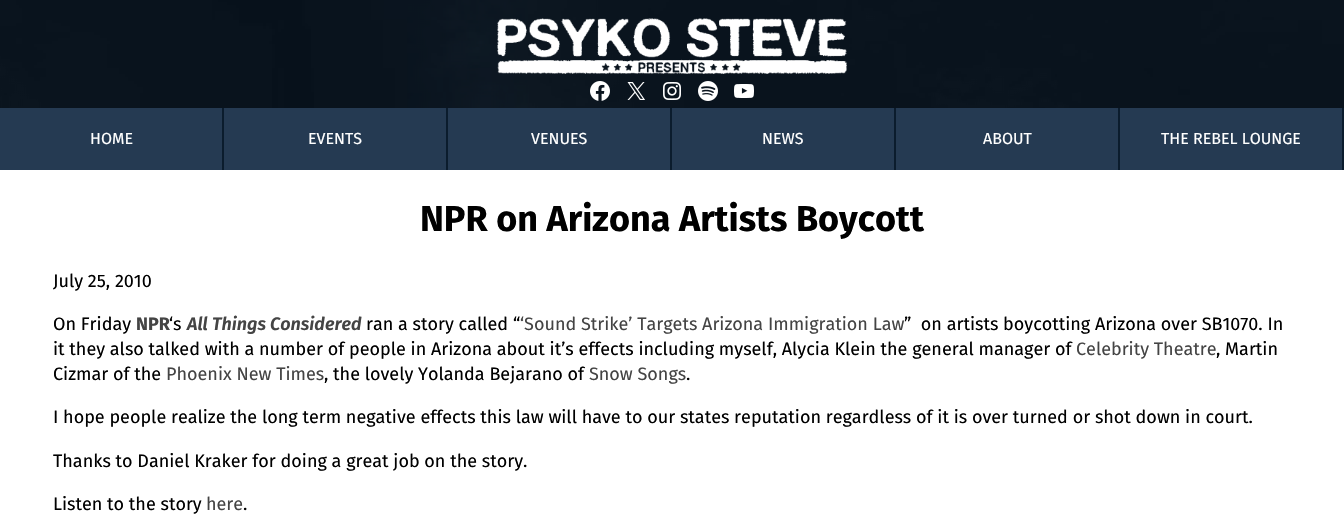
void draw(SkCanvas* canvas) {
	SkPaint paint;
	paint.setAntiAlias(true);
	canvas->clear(0xffffffff);
	paint.setColor(0xff0b1c2d);
	canvas->drawRect(SkRect::MakeXYWH(0, 0, 1344, 108), paint);
	canvas->drawImageRect(SkImages::DeferredFromEncodedData(SkData::MakeFromFileName("img1.png")), SkRect::MakeXYWH(0, 0, 1344, 108), SkSamplingOptions());
	canvas->drawImageRect(SkImages::DeferredFromEncodedData(SkData::MakeFromFileName("img2.png")), SkRect::MakeXYWH(497, 18, 350, 56), SkSamplingOptions());
	canvas->drawImageRect(SkImages::DeferredFromEncodedData(SkData::MakeFromFileName("img3.png")), SkRect::MakeXYWH(590, 81, 20, 20), SkSamplingOptions());
	canvas->drawImageRect(SkImages::DeferredFromEncodedData(SkData::MakeFromFileName("img4.png")), SkRect::MakeXYWH(627, 82, 18, 18), SkSamplingOptions());
	canvas->drawImageRect(SkImages::DeferredFromEncodedData(SkData::MakeFromFileName("img5.png")), SkRect::MakeXYWH(663, 82, 18, 18), SkSamplingOptions());
	canvas->drawImageRect(SkImages::DeferredFromEncodedData(SkData::MakeFromFileName("img6.png")), SkRect::MakeXYWH(698, 81, 20, 20), SkSamplingOptions());
	canvas->drawImageRect(SkImages::DeferredFromEncodedData(SkData::MakeFromFileName("img7.png")), SkRect::MakeXYWH(734, 84, 20, 14), SkSamplingOptions());
	canvas->drawRect(SkRect::MakeXYWH(222, 108, 1122, 62), paint);
	paint.setColor(0xff253a52);
	canvas->drawRect(SkRect::MakeXYWH(0, 108, 222, 62), paint);
	SkFont f1(fontMgr->matchFamilyStyle("Fira Sans", SkFontStyle::Normal()), 16);
	f1.setSubpixel(true);
	paint.setColor(0xffffffff);
	canvas->drawString("HOME", 90, 144, f1, paint);
	paint.setColor(0xff253a52);
	canvas->drawRect(SkRect::MakeXYWH(224, 108, 222, 62), paint);
	paint.setColor(0xffffffff);
	canvas->drawString("EVENTS", 308, 144, f1, paint);
	paint.setColor(0xff253a52);
	canvas->drawRect(SkRect::MakeXYWH(448, 108, 222, 62), paint);
	paint.setColor(0xffffffff);
	canvas->drawString("VENUES", 531, 144, f1, paint);
	paint.setColor(0xff253a52);
	canvas->drawRect(SkRect::MakeXYWH(672, 108, 222, 62), paint);
	paint.setColor(0xffffffff);
	canvas->drawString("NEWS", 762, 144, f1, paint);
	paint.setColor(0xff253a52);
	canvas->drawRect(SkRect::MakeXYWH(896, 108, 222, 62), paint);
	paint.setColor(0xffffffff);
	canvas->drawString("ABOUT", 983, 144, f1, paint);
	paint.setColor(0xff253a52);
	canvas->drawRect(SkRect::MakeXYWH(1120, 108, 222, 62), paint);
	paint.setColor(0xffffffff);
	canvas->drawString("THE REBEL LOUNGE", 1161, 144, f1, paint);
	SkFont f2(fontMgr->matchFamilyStyle("Fira Sans", SkFontStyle::Bold()), 36);
	f2.setSubpixel(true);
	paint.setColor(0xff000000);
	canvas->drawString("NPR on Arizona Artists Boycott", 420, 231, f2, paint);
	SkFont f3(fontMgr->matchFamilyStyle("Fira Sans", SkFontStyle::Normal()), 18);
	f3.setSubpixel(true);
	canvas->drawString("July 25, 2010", 53, 287, f3, paint);
	canvas->drawString("On Friday", 53, 330, f3, paint);
	SkFont f4(fontMgr->matchFamilyStyle("Fira Sans", SkFontStyle::Bold()), 18);
	f4.setSubpixel(true);
	paint.setColor(0xff444444);
	canvas->drawString("NPR", 136, 330, f4, paint);
	paint.setColor(0xff000000);
	canvas->drawString("‘s", 169, 330, f3, paint);
	SkFont f5(fontMgr->matchFamilyStyle("Fira Sans", SkFontStyle(600, SkFontStyle::kNormal_Width, SkFontStyle::kItalic_Slant)), 18);
	f5.setSubpixel(true);
	paint.setColor(0xff444444);
	canvas->drawString("All Things Considered", 187, 330, f5, paint);
	paint.setColor(0xff000000);
	canvas->drawString("ran a story called “", 366, 330, f3, paint);
	paint.setColor(0xff444444);
	canvas->drawString("‘Sound Strike’ Targets Arizona Immigration Law", 520, 330, f3, paint);
	paint.setColor(0xff000000);
	canvas->drawString("”  on artists boycotting Arizona over SB1070. In", 904, 330, f3, paint);
	canvas->drawString("it they also talked with a number of people in Arizona about it’s effects including myself, Alycia Klein the general manager of", 53, 355, f3, paint);
	paint.setColor(0xff444444);
	canvas->drawString("Celebrity Theatre", 1076, 355, f3, paint);
	paint.setColor(0xff000000);
	canvas->drawString(", Martin", 1216, 355, f3, paint);
	canvas->drawString("Cizmar of the", 53, 380, f3, paint);
	paint.setColor(0xff444444);
	canvas->drawString("Phoenix New Times", 166, 380, f3, paint);
	paint.setColor(0xff000000);
	canvas->drawString(", the lovely Yolanda Bejarano of", 324, 380, f3, paint);
	paint.setColor(0xff444444);
	canvas->drawString("Snow Songs", 589, 380, f3, paint);
	paint.setColor(0xff000000);
	canvas->drawString(".", 686, 380, f3, paint);
	canvas->drawString("I hope people realize the long term negative effects this law will have to our states reputation regardless of it is over turned or shot down in court.", 53, 423, f3, paint);
	canvas->drawString("Thanks to Daniel Kraker for doing a great job on the story.", 53, 467, f3, paint);
	canvas->drawString("Listen to the story", 53, 510, f3, paint);
	paint.setColor(0xff444444);
	canvas->drawString("here", 206, 510, f3, paint);
	paint.setColor(0xff000000);
	canvas->drawString(".", 243, 510, f3, paint);
}
